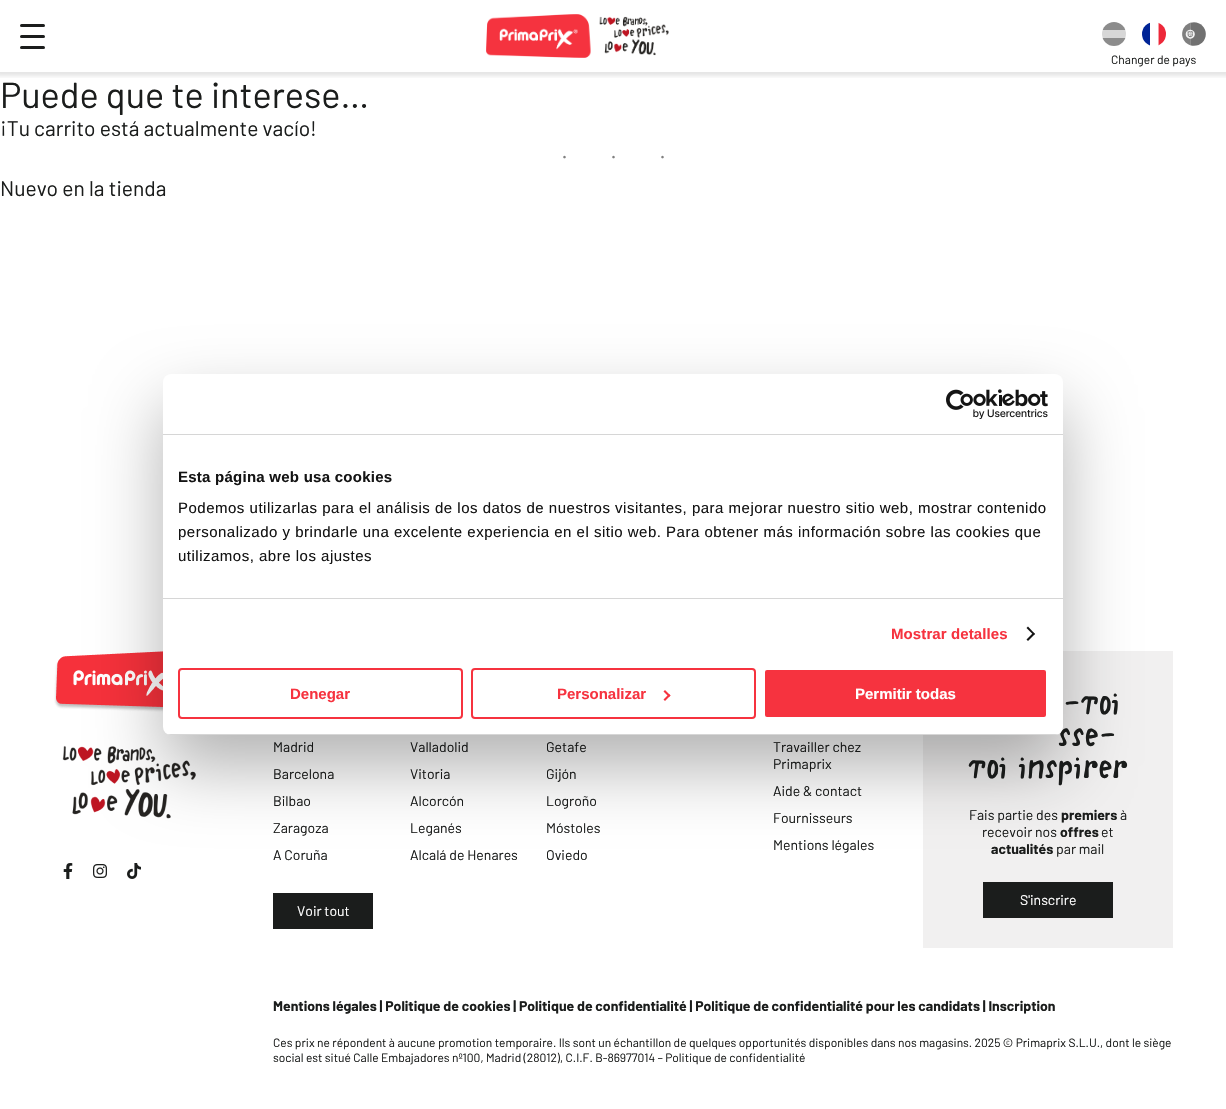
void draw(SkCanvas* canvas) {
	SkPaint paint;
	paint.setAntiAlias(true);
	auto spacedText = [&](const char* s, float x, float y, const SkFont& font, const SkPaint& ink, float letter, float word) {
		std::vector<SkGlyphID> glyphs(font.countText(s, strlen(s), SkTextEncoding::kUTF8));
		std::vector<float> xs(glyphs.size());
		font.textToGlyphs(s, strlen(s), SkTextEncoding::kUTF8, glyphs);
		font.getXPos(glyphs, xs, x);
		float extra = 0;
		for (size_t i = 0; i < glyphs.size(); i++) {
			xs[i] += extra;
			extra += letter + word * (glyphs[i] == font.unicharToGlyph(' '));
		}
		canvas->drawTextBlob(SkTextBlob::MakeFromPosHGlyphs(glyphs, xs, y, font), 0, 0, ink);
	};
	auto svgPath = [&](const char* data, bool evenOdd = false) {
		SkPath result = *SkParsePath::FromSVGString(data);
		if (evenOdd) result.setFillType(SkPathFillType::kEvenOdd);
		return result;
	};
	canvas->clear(0xffffffff);
	canvas->save();
	canvas->clipRect(SkRect::MakeXYWH(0, 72, 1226, 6));
	paint.setColor(0x1a000000);
	paint.setMaskFilter(SkMaskFilter::MakeBlur(kNormal_SkBlurStyle, 2));
	canvas->drawRect(SkRect::MakeXYWH(-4, -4, 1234, 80), paint);
	paint.setMaskFilter(nullptr);
	canvas->restore();
	paint.setColor(0xff1b1d1c);
	canvas->drawRoundRect(SkRect::MakeXYWH(20, 24, 25, 3), 1.5, 1.5, paint);
	canvas->drawRoundRect(SkRect::MakeXYWH(20, 35, 25, 3), 1.5, 1.5, paint);
	canvas->drawRoundRect(SkRect::MakeXYWH(20, 46, 25, 3), 1.5, 1.5, paint);
	canvas->drawImageRect(SkImages::DeferredFromEncodedData(SkData::MakeFromFileName("img1.png")), SkRect::MakeXYWH(486, 14, 183, 44), SkSamplingOptions());
	canvas->drawImageRect(SkImages::DeferredFromEncodedData(SkData::MakeFromFileName("img2.png")), SkRect::MakeXYWH(1102, 22, 24, 24), SkSamplingOptions());
	canvas->drawImageRect(SkImages::DeferredFromEncodedData(SkData::MakeFromFileName("img3.png")), SkRect::MakeXYWH(1142, 22, 24, 24), SkSamplingOptions());
	canvas->drawImageRect(SkImages::DeferredFromEncodedData(SkData::MakeFromFileName("img4.png")), SkRect::MakeXYWH(1182, 22, 24, 24), SkSamplingOptions());
	SkFont f1(fontMgr->matchFamilyStyle("Barlow", SkFontStyle::Normal()), 12);
	f1.setSubpixel(true);
	canvas->drawString("Changer de pays", 1111, 64, f1, paint);
	SkFont f2(fontMgr->matchFamilyStyle("Barlow", SkFontStyle::Normal()), 36);
	f2.setSubpixel(true);
	canvas->drawString("Puede que te interese…", 0, 108, f2, paint);
	SkFont f3(fontMgr->matchFamilyStyle("Barlow", SkFontStyle::Normal()), 21);
	f3.setSubpixel(true);
	canvas->drawString("¡Tu carrito está actualmente vacío!", 0, 136, f3, paint);
	SkFont f4(fontMgr->matchFamilyStyle("Liberation Serif", SkFontStyle::Normal()), 21);
	f4.setSubpixel(true);
	paint.setColor(0xff808080);
	spacedText("···", 561, 164, f4, paint, 42, 0);
	paint.setColor(0xff1b1d1c);
	canvas->drawString("Nuevo en la tienda", 0, 196, f3, paint);
	canvas->drawImageRect(SkImages::DeferredFromEncodedData(SkData::MakeFromFileName("img5.png")), SkRect::MakeXYWH(54, 651, 142, 168), SkSamplingOptions());
	canvas->drawImageRect(SkImages::DeferredFromEncodedData(SkData::MakeFromFileName("img6.png")), SkRect::MakeXYWH(63, 863, 10, 16), SkSamplingOptions());
	canvas->drawImageRect(SkImages::DeferredFromEncodedData(SkData::MakeFromFileName("img7.png")), SkRect::MakeXYWH(93, 864, 14, 14), SkSamplingOptions());
	canvas->drawImageRect(SkImages::DeferredFromEncodedData(SkData::MakeFromFileName("img8.png")), SkRect::MakeXYWH(127, 863, 14, 16), SkSamplingOptions());
	SkFont f5(fontMgr->matchFamilyStyle("Barlow", SkFontStyle::Normal()), 14);
	f5.setSubpixel(true);
	canvas->drawString("Madrid", 273, 752, f5, paint);
	canvas->drawString("Barcelona", 273, 779, f5, paint);
	canvas->drawString("Bilbao", 273, 806, f5, paint);
	canvas->drawString("Zaragoza", 273, 833, f5, paint);
	canvas->drawString("A Coruña", 273, 860, f5, paint);
	canvas->drawString("Valladolid", 410, 752, f5, paint);
	canvas->drawString("Vitoria", 410, 779, f5, paint);
	canvas->drawString("Alcorcón", 410, 806, f5, paint);
	canvas->drawString("Leganés", 410, 833, f5, paint);
	canvas->drawString("Alcalá de Henares", 410, 860, f5, paint);
	canvas->drawString("Getafe", 546, 752, f5, paint);
	canvas->drawString("Gijón", 546, 779, f5, paint);
	canvas->drawString("Logroño", 546, 806, f5, paint);
	canvas->drawString("Móstoles", 546, 833, f5, paint);
	canvas->drawString("Oviedo", 546, 860, f5, paint);
	canvas->drawRect(SkRect::MakeXYWH(273, 893, 100, 36), paint);
	paint.setColor(0xffffffff);
	canvas->drawString("Voir tout", 297, 916, f5, paint);
	paint.setColor(0xff1b1d1c);
	canvas->drawString("Travailler chez", 773, 752, f5, paint);
	canvas->drawString("Primaprix", 773, 769, f5, paint);
	canvas->drawString("Aide & contact", 773, 796, f5, paint);
	canvas->drawString("Fournisseurs", 773, 823, f5, paint);
	canvas->drawString("Mentions légales", 773, 850, f5, paint);
	paint.setColor(0xfff1f0f0);
	canvas->drawRect(SkRect::MakeXYWH(923, 651, 250, 297), paint);
	SkFont f6(fontMgr->matchFamilyStyle("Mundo", SkFontStyle(600, SkFontStyle::kNormal_Width, SkFontStyle::kUpright_Slant)), 40);
	f6.setSubpixel(true);
	paint.setColor(0xff1b1d1c);
	canvas->drawString("-toi", 1063, 714, f6, paint);
	canvas->drawString("sse-", 1058, 746, f6, paint);
	canvas->drawString("toi inspirer", 968, 778, f6, paint);
	canvas->drawString("Fais partie des", 969, 820, f5, paint);
	SkFont f7(fontMgr->matchFamilyStyle("Barlow", SkFontStyle::Bold()), 14);
	f7.setSubpixel(true);
	canvas->drawString("premiers", 1061, 820, f7, paint);
	canvas->drawString("à", 1120, 820, f5, paint);
	canvas->drawString("recevoir nos", 982, 837, f5, paint);
	canvas->drawString("offres", 1060, 837, f7, paint);
	canvas->drawString("et", 1101, 837, f5, paint);
	canvas->drawString("actualités", 991, 854, f7, paint);
	canvas->drawString("par mail", 1056, 854, f5, paint);
	canvas->drawRect(SkRect::MakeXYWH(983, 882, 130, 36), paint);
	paint.setColor(0xffffffff);
	canvas->drawString("S'inscrire", 1020, 905, f5, paint);
	paint.setColor(0xff1b1d1c);
	canvas->drawString("Mentions légales | Politique de cookies | Politique de confidentialité | Politique de confidentialité pour les candidats | Inscription", 273, 1011, f7, paint);
	canvas->drawString("Ces prix ne répondent à aucune promotion temporaire. Ils sont un échantillon de quelques opportunités disponibles dans nos magasins. 2025 © Primaprix S.L.U., dont le siège", 273, 1047, f1, paint);
	canvas->drawString("social est situé Calle Embajadores nº100, Madrid (28012), C.I.F. B-86977014 – Politique de confidentialité", 273, 1062, f1, paint);
	paint.setColor(0x4d000000);
	paint.setMaskFilter(SkMaskFilter::MakeBlur(kNormal_SkBlurStyle, 34));
	canvas->drawRoundRect(SkRect::MakeXYWH(163, 406, 900, 361), 8, 8, paint);
	paint.setMaskFilter(nullptr);
	paint.setColor(0xffffffff);
	canvas->drawRoundRect(SkRect::MakeXYWH(163, 374, 900, 361), 8, 8, paint);
	paint.setColor(0xffd6d6d6);
	canvas->drawRect(SkRect::MakeXYWH(163, 434, 900, 1), paint);
	canvas->drawImageRect(SkImages::DeferredFromEncodedData(SkData::MakeFromFileName("img9.png")), SkRect::MakeXYWH(946, 389, 102, 30), SkSamplingOptions());
	canvas->drawRect(SkRect::MakeXYWH(163, 598, 900, 1), paint);
	SkFont f8(fontMgr->matchFamilyStyle("Liberation Sans", SkFontStyle::Bold()), 15);
	f8.setSubpixel(true);
	paint.setColor(0xff141414);
	spacedText("Esta página web usa cookies", 178, 482, f8, paint, 0.25, 0);
	SkFont f9(fontMgr->matchFamilyStyle("Liberation Sans", SkFontStyle::Normal()), 15);
	f9.setSubpixel(true);
	spacedText("Podemos utilizarlas para el análisis de los datos de nuestros visitantes, para mejorar nuestro sitio web, mostrar contenido", 178, 513, f9, paint, 0.5, 0);
	spacedText("personalizado y brindarle una excelente experiencia en el sitio web. Para obtener más información sobre las cookies que", 178, 537, f9, paint, 0.5, 0);
	spacedText("utilizamos, abre los ajustes", 178, 561, f9, paint, 0.5, 0);
	paint.setColor(0xfff6333f);
	spacedText("Mostrar detalles", 891, 639, f8, paint, 0.1, 0);
	paint.setColor(0xff141414);
	canvas->drawPath(svgPath("M1028 626.5L1035 634L1033.5 635L1026.5 628Z"), paint);
	canvas->drawPath(svgPath("M1033.5 632.5L1035 634L1028 641L1026.5 639.5Z"), paint);
	canvas->save();
	canvas->clipPath(svgPath("M171 374H1055C1059.5 374 1063 377.5 1063 382V727C1063 731.5 1059.5 735 1055 735H171C166.5 735 163 731.5 163 727V382C163 377.5 166.5 374 171 374Z"), true);
	paint.setColor(0xffd6d6d6);
	canvas->drawRect(SkRect::MakeXYWH(163, 734, 900, 1), paint);
	canvas->restore();
	paint.setStroke(true);
	paint.setStrokeWidth(2);
	paint.setColor(0xfff6333f);
	canvas->drawRoundRect(SkRect::MakeXYWH(179, 669, 283, 49), 3, 3, paint);
	paint.setStroke(false);
	canvas->drawString("Denegar", 290, 699, f8, paint);
	paint.setStroke(true);
	canvas->drawRoundRect(SkRect::MakeXYWH(472, 669, 283, 49), 3, 3, paint);
	paint.setStroke(false);
	canvas->drawString("Personalizar", 557, 699, f8, paint);
	canvas->drawPath(svgPath("M665 690L670.5 695.5L669 697L663.5 691.5Z"), paint);
	canvas->drawPath(svgPath("M669 694L670.5 695.5L665 701L663.5 699.5Z"), paint);
	canvas->drawRoundRect(SkRect::MakeXYWH(764, 669, 283, 49), 3, 3, paint);
	paint.setStroke(true);
	paint.setColor(0xffffffff);
	canvas->drawRoundRect(SkRect::MakeXYWH(764, 669, 283, 49), 3, 3, paint);
	paint.setStroke(false);
	canvas->drawString("Permitir todas", 855, 699, f8, paint);
}
